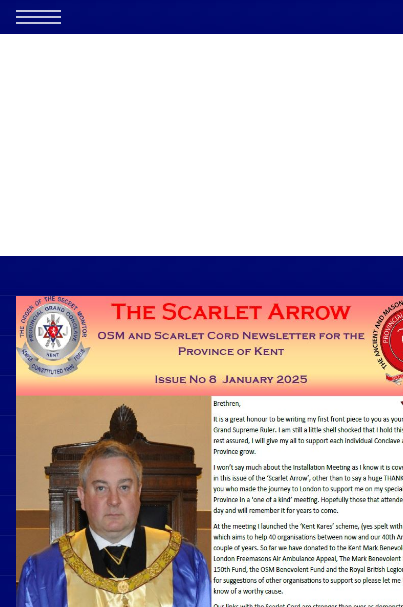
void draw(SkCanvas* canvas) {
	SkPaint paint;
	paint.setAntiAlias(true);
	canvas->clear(0xffffffff);
	canvas->drawImageRect(SkImages::DeferredFromEncodedData(SkData::MakeFromFileName("img1.png")), SkRect::MakeXYWH(0, 0, 403, 34), SkSamplingOptions());
	canvas->drawImageRect(SkImages::DeferredFromEncodedData(SkData::MakeFromFileName("img2.png")), SkRect::MakeXYWH(16, 10, 45, 14), SkSamplingOptions());
	canvas->drawImageRect(SkImages::DeferredFromEncodedData(SkData::MakeFromFileName("img3.png")), SkRect::MakeXYWH(0, 256, 403, 351), SkSamplingOptions());
	canvas->drawImageRect(SkImages::DeferredFromEncodedData(SkData::MakeFromFileName("img4.png")), SkRect::MakeXYWH(16, 296, 387, 311), SkSamplingOptions());
}
